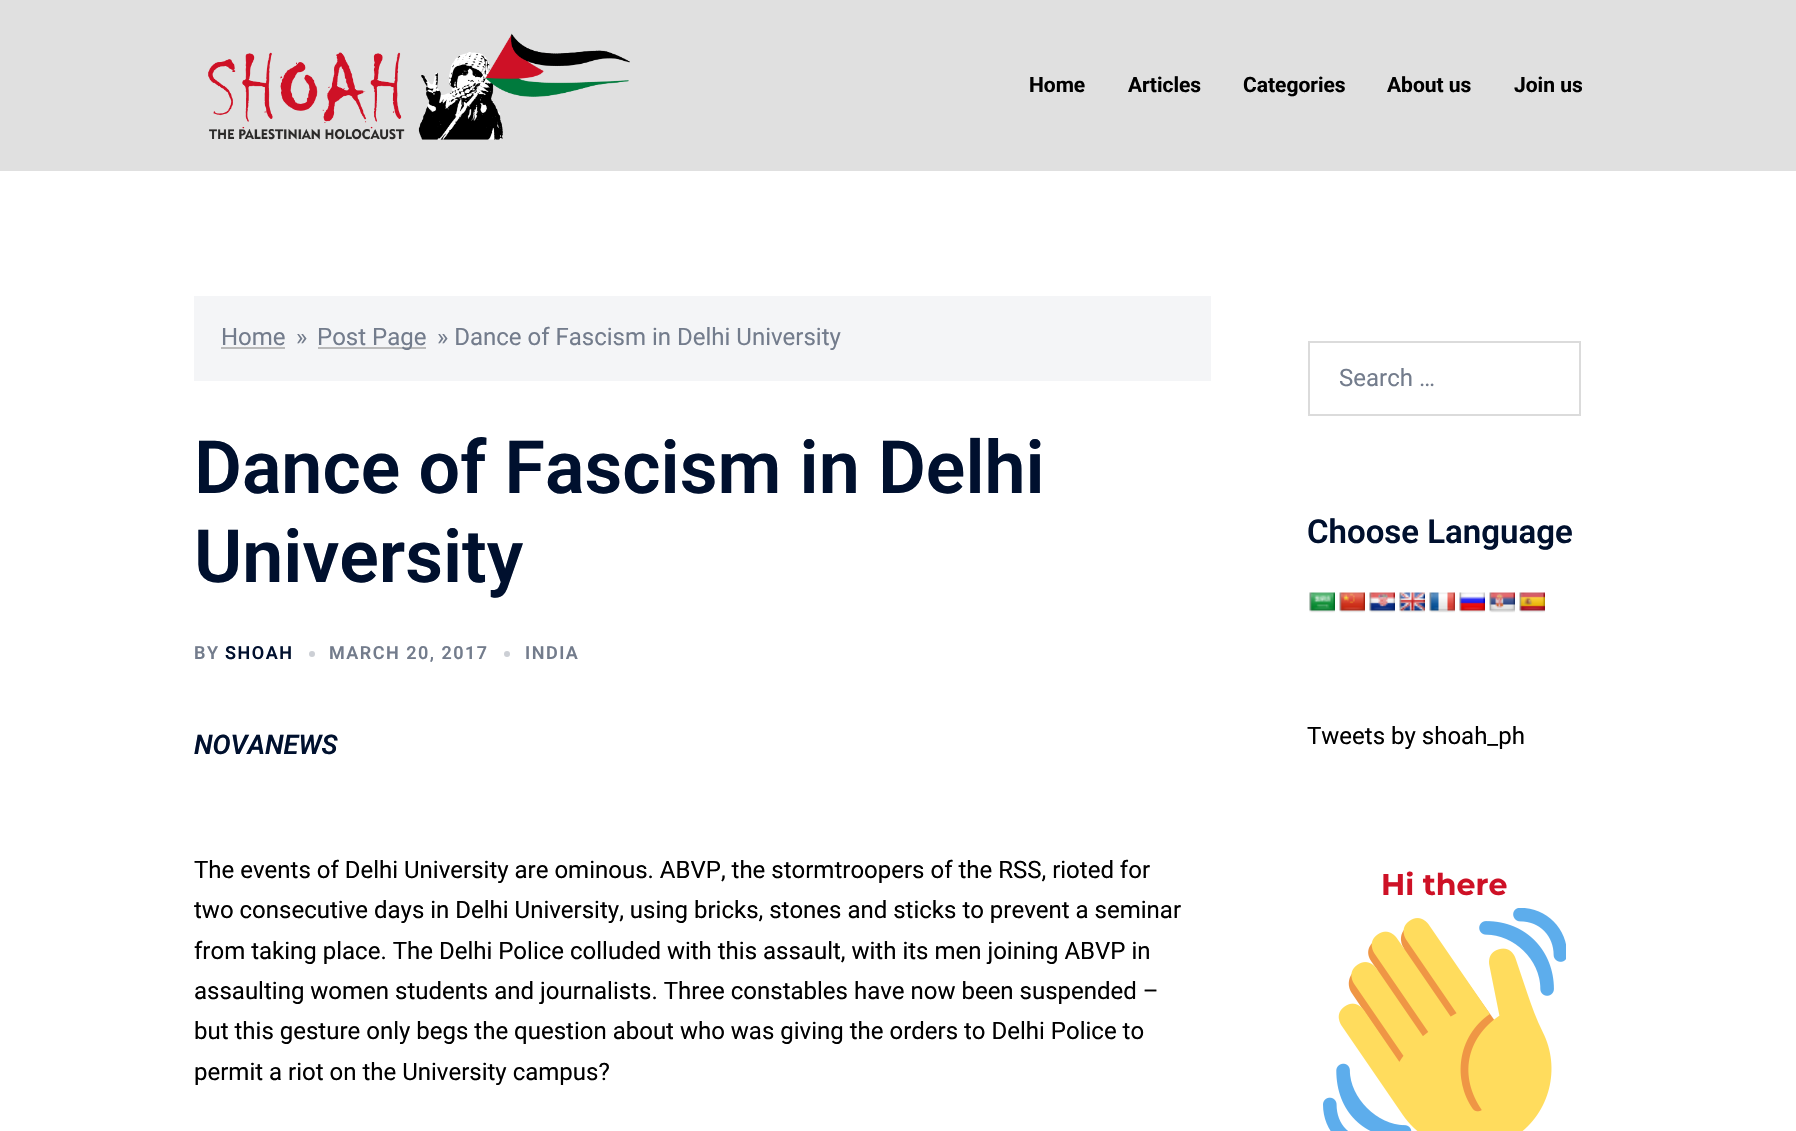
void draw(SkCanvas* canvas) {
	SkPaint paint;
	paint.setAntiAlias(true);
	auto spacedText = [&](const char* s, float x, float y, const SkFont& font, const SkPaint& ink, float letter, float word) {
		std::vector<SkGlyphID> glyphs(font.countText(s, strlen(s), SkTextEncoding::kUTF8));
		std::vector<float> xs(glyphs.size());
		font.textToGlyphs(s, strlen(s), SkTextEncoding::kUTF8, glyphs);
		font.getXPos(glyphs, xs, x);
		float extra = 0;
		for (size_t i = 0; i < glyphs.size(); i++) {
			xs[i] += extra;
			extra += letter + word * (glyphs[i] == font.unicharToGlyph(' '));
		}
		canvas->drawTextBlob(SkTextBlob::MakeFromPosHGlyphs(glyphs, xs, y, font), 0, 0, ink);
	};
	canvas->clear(0xffffffff);
	paint.setColor(0xffe0e0e0);
	canvas->drawRect(SkRect::MakeXYWH(0, 0, 1796, 171), paint);
	canvas->drawImageRect(SkImages::DeferredFromEncodedData(SkData::MakeFromFileName("img1.png")), SkRect::MakeXYWH(208, 33, 422, 107), SkSamplingOptions());
	SkFont f1(fontMgr->matchFamilyStyle("Roboto", SkFontStyle::Bold()), 21);
	f1.setSubpixel(true);
	paint.setColor(0xff000000);
	canvas->drawString("Home", 1029, 92, f1, paint);
	canvas->drawString("Articles", 1128, 92, f1, paint);
	canvas->drawString("Categories", 1243, 92, f1, paint);
	canvas->drawString("About us", 1387, 92, f1, paint);
	canvas->drawString("Join us", 1514, 92, f1, paint);
	paint.setColor(0xfff4f5f7);
	canvas->drawRect(SkRect::MakeXYWH(194, 296, 1017, 85), paint);
	SkFont f2(fontMgr->matchFamilyStyle("Roboto", SkFontStyle::Normal()), 24);
	f2.setSubpixel(true);
	paint.setColor(0xff737c8c);
	canvas->drawString("Home", 221, 345, f2, paint);
	paint.setColor(0xffbababa);
	canvas->drawRect(SkRect::MakeXYWH(221, 347, 64, 2), paint);
	paint.setColor(0xff737c8c);
	canvas->drawString("»", 296, 345, f2, paint);
	paint.setColor(0xffbababa);
	canvas->drawRect(SkRect::MakeXYWH(318, 347, 108, 2), paint);
	paint.setColor(0xff737c8c);
	canvas->drawString("Post Page", 317, 345, f2, paint);
	canvas->drawString("» Dance of Fascism in Delhi University", 437, 345, f2, paint);
	SkFont f3(fontMgr->matchFamilyStyle("Roboto", SkFontStyle(600, SkFontStyle::kNormal_Width, SkFontStyle::kUpright_Slant)), 73.5);
	f3.setSubpixel(true);
	paint.setColor(0xff00102e);
	canvas->drawString("Dance of Fascism in Delhi", 194, 493, f3, paint);
	canvas->drawString("University", 194, 582, f3, paint);
	SkFont f4(fontMgr->matchFamilyStyle("Roboto", SkFontStyle(600, SkFontStyle::kNormal_Width, SkFontStyle::kUpright_Slant)), 18);
	f4.setSubpixel(true);
	paint.setColor(0xff737c8c);
	spacedText("BY", 194, 659, f4, paint, 1.5, 0);
	paint.setColor(0xff00102e);
	spacedText("SHOAH", 225, 659, f4, paint, 1.5, 0);
	paint.setColor(0xffcccfd5);
	canvas->drawCircle(312, 654, 3, paint);
	paint.setColor(0xff737c8c);
	spacedText("MARCH 20, 2017", 329, 659, f4, paint, 1.5, 0);
	paint.setColor(0xffcccfd5);
	canvas->drawCircle(507, 654, 3, paint);
	paint.setColor(0xff737c8c);
	spacedText("INDIA", 525, 659, f4, paint, 1.5, 0);
	SkFont f5(fontMgr->matchFamilyStyle("Roboto", SkFontStyle(600, SkFontStyle::kNormal_Width, SkFontStyle::kItalic_Slant)), 27);
	f5.setSubpixel(true);
	paint.setColor(0xff00102e);
	canvas->drawString("NOVANEWS", 194, 754, f5, paint);
	paint.setColor(0xff000000);
	canvas->drawString("The events of Delhi University are ominous. ABVP, the stormtroopers of the RSS, rioted for", 194, 878, f2, paint);
	canvas->drawString("two consecutive days in Delhi University, using bricks, stones and sticks to prevent a seminar", 194, 918, f2, paint);
	canvas->drawString("from taking place. The Delhi Police colluded with this assault, with its men joining ABVP in", 194, 959, f2, paint);
	canvas->drawString("assaulting women students and journalists. Three constables have now been suspended –", 194, 999, f2, paint);
	canvas->drawString("but this gesture only begs the question about who was giving the orders to Delhi Police to", 194, 1039, f2, paint);
	canvas->drawString("permit a riot on the University campus?", 194, 1080, f2, paint);
	paint.setStroke(true);
	paint.setStrokeWidth(2);
	paint.setColor(0xffdbdbdb);
	canvas->drawRect(SkRect::MakeXYWH(1309, 342, 271, 73), paint);
	paint.setStroke(false);
	paint.setColor(0xff737c8c);
	canvas->drawString("Search …", 1339, 386, f2, paint);
	SkFont f6(fontMgr->matchFamilyStyle("Roboto", SkFontStyle(600, SkFontStyle::kNormal_Width, SkFontStyle::kUpright_Slant)), 33);
	f6.setSubpixel(true);
	paint.setColor(0xff00102e);
	canvas->drawString("Choose Language", 1307, 543, f6, paint);
	canvas->drawImageRect(SkImages::DeferredFromEncodedData(SkData::MakeFromFileName("img2.png")), SkRect::MakeXYWH(1309, 592, 26, 21), SkSamplingOptions());
	canvas->drawImageRect(SkImages::DeferredFromEncodedData(SkData::MakeFromFileName("img3.png")), SkRect::MakeXYWH(1339, 592, 26, 21), SkSamplingOptions());
	canvas->drawImageRect(SkImages::DeferredFromEncodedData(SkData::MakeFromFileName("img4.png")), SkRect::MakeXYWH(1369, 592, 26, 21), SkSamplingOptions());
	canvas->drawImageRect(SkImages::DeferredFromEncodedData(SkData::MakeFromFileName("img5.png")), SkRect::MakeXYWH(1399, 592, 26, 21), SkSamplingOptions());
	canvas->drawImageRect(SkImages::DeferredFromEncodedData(SkData::MakeFromFileName("img6.png")), SkRect::MakeXYWH(1429, 592, 26, 21), SkSamplingOptions());
	canvas->drawImageRect(SkImages::DeferredFromEncodedData(SkData::MakeFromFileName("img7.png")), SkRect::MakeXYWH(1459, 592, 26, 21), SkSamplingOptions());
	canvas->drawImageRect(SkImages::DeferredFromEncodedData(SkData::MakeFromFileName("img8.png")), SkRect::MakeXYWH(1489, 592, 26, 21), SkSamplingOptions());
	canvas->drawImageRect(SkImages::DeferredFromEncodedData(SkData::MakeFromFileName("img9.png")), SkRect::MakeXYWH(1519, 592, 26, 21), SkSamplingOptions());
	paint.setColor(0xff000000);
	canvas->drawString("Tweets by shoah_ph", 1307, 744, f2, paint);
	SkFont f7(fontMgr->matchFamilyStyle("Montserrat", SkFontStyle::Bold()), 30);
	f7.setSubpixel(true);
	paint.setColor(0xffce1126);
	canvas->drawString("Hi there", 1381, 895, f7, paint);
	canvas->drawImageRect(SkImages::DeferredFromEncodedData(SkData::MakeFromFileName("img10.png")), SkRect::MakeXYWH(1323, 908, 243, 223), SkSamplingOptions());
}
